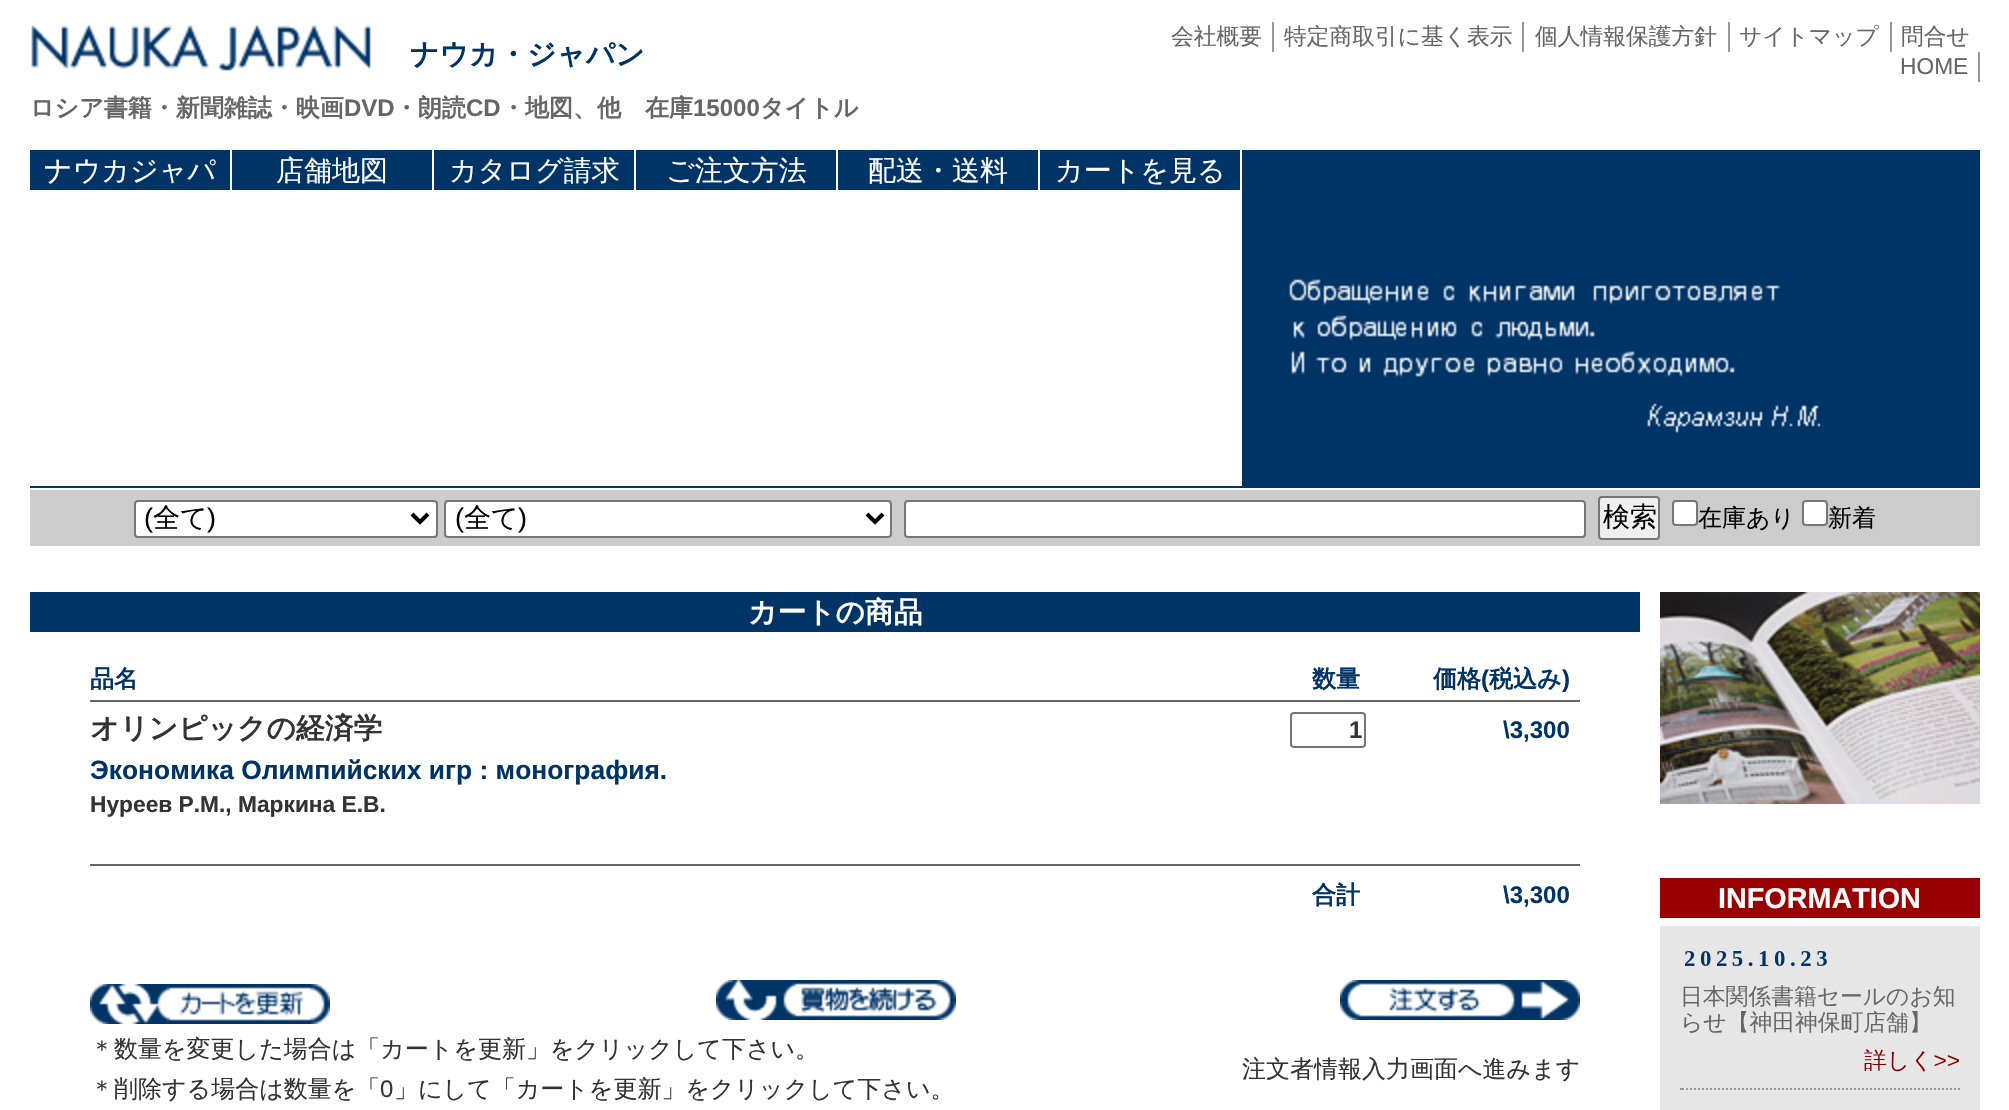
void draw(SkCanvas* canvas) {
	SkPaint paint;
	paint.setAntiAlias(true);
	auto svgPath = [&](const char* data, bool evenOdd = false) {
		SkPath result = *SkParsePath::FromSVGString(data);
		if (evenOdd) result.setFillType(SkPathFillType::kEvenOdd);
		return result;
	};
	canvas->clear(0xffffffff);
	canvas->drawImageRect(SkImages::DeferredFromEncodedData(SkData::MakeFromFileName("img1.png")), SkRect::MakeXYWH(31, 24, 340, 47), SkSamplingOptions());
	SkFont f1(fontMgr->matchFamilyStyle("WenQuanYi Zen Hei", SkFontStyle::Bold()), 28.75);
	f1.setSubpixel(true);
	paint.setColor(0xff003366);
	canvas->drawString("ナウカ・ジャパン", 410, 64, f1, paint);
	paint.setColor(0xff999999);
	canvas->drawRect(SkRect::MakeXYWH(1272, 22, 2, 30), paint);
	SkFont f2(fontMgr->matchFamilyStyle("WenQuanYi Zen Hei", SkFontStyle(500, SkFontStyle::kNormal_Width, SkFontStyle::kUpright_Slant)), 22.75);
	f2.setSubpixel(true);
	paint.setColor(0xff666666);
	canvas->drawString("会社概要", 1171, 44, f2, paint);
	paint.setColor(0xff999999);
	canvas->drawRect(SkRect::MakeXYWH(1522, 22, 2, 30), paint);
	paint.setColor(0xff666666);
	canvas->drawString("特定商取引に基く表示", 1284, 44, f2, paint);
	paint.setColor(0xff999999);
	canvas->drawRect(SkRect::MakeXYWH(1728, 22, 2, 30), paint);
	paint.setColor(0xff666666);
	canvas->drawString("個人情報保護方針", 1535, 44, f2, paint);
	paint.setColor(0xff999999);
	canvas->drawRect(SkRect::MakeXYWH(1890, 22, 2, 30), paint);
	paint.setColor(0xff666666);
	canvas->drawString("サイトマップ", 1739, 44, f2, paint);
	canvas->drawString("問合せ", 1901, 44, f2, paint);
	paint.setColor(0xff999999);
	canvas->drawRect(SkRect::MakeXYWH(1978, 52, 2, 30), paint);
	SkFont f3(fontMgr->matchFamilyStyle("Liberation Sans", SkFontStyle::Normal()), 22.75);
	f3.setSubpixel(true);
	paint.setColor(0xff666666);
	canvas->drawString("HOME", 1900, 74, f3, paint);
	SkFont f4(fontMgr->matchFamilyStyle("WenQuanYi Zen Hei", SkFontStyle::Bold()), 24);
	f4.setSubpixel(true);
	canvas->drawString("ロシア書籍・新聞雑誌・映画", 30, 116, f4, paint);
	SkFont f5(fontMgr->matchFamilyStyle("Liberation Sans", SkFontStyle::Bold()), 24);
	f5.setSubpixel(true);
	canvas->drawString("DVD", 344, 116, f5, paint);
	canvas->drawString("・朗読", 394, 116, f4, paint);
	canvas->drawString("CD", 466, 116, f5, paint);
	canvas->drawString("・地図、他　在庫", 501, 116, f4, paint);
	canvas->drawString("15000", 693, 116, f5, paint);
	canvas->drawString("タイトル", 760, 116, f4, paint);
	paint.setColor(0xff003366);
	canvas->drawRect(SkRect::MakeXYWH(30, 150, 1950, 338), paint);
	paint.setColor(0xffffffff);
	canvas->drawRect(SkRect::MakeXYWH(30, 150, 1212, 336), paint);
	paint.setColor(0xff003366);
	canvas->drawRect(SkRect::MakeXYWH(30, 150, 200, 40), paint);
	SkFont f6(fontMgr->matchFamilyStyle("WenQuanYi Zen Hei", SkFontStyle(500, SkFontStyle::kNormal_Width, SkFontStyle::kUpright_Slant)), 28);
	f6.setSubpixel(true);
	paint.setColor(0xffffffff);
	canvas->drawString("ナウカジャパ", 44, 180, f6, paint);
	paint.setColor(0xff003366);
	canvas->drawRect(SkRect::MakeXYWH(232, 150, 200, 40), paint);
	paint.setColor(0xffffffff);
	canvas->drawString("店舗地図", 276, 180, f6, paint);
	paint.setColor(0xff003366);
	canvas->drawRect(SkRect::MakeXYWH(434, 150, 200, 40), paint);
	paint.setColor(0xffffffff);
	canvas->drawString("カタログ請求", 449, 180, f6, paint);
	paint.setColor(0xff003366);
	canvas->drawRect(SkRect::MakeXYWH(636, 150, 200, 40), paint);
	paint.setColor(0xffffffff);
	canvas->drawString("ご注文方法", 666, 180, f6, paint);
	paint.setColor(0xff003366);
	canvas->drawRect(SkRect::MakeXYWH(838, 150, 200, 40), paint);
	paint.setColor(0xffffffff);
	canvas->drawString("配送・送料", 868, 180, f6, paint);
	paint.setColor(0xff003366);
	canvas->drawRect(SkRect::MakeXYWH(1040, 150, 200, 40), paint);
	paint.setColor(0xffffffff);
	canvas->drawString("カートを見る", 1055, 180, f6, paint);
	canvas->drawImageRect(SkImages::DeferredFromEncodedData(SkData::MakeFromFileName("img2.png")), SkRect::MakeXYWH(1289, 279, 532, 154), SkSamplingOptions());
	paint.setColor(0xffcccccc);
	canvas->drawRect(SkRect::MakeXYWH(30, 490, 1950, 56), paint);
	paint.setColor(0xffffffff);
	canvas->drawRoundRect(SkRect::MakeXYWH(135, 501, 302, 36), 3, 3, paint);
	paint.setStroke(true);
	paint.setStrokeWidth(2);
	paint.setColor(0xff767676);
	canvas->drawRoundRect(SkRect::MakeXYWH(135, 501, 302, 36), 3, 3, paint);
	paint.setStrokeWidth(4);
	paint.setColor(0xff000000);
	canvas->drawPath(svgPath("M412 514L420 522L428 514"), paint);
	SkFont f7(fontMgr->matchFamilyStyle("Liberation Sans", SkFontStyle::Normal()), 27);
	f7.setSubpixel(true);
	paint.setStroke(false);
	canvas->drawString("(", 144, 527, f7, paint);
	SkFont f8(fontMgr->matchFamilyStyle("WenQuanYi Zen Hei", SkFontStyle(500, SkFontStyle::kNormal_Width, SkFontStyle::kUpright_Slant)), 27);
	f8.setSubpixel(true);
	canvas->drawString("全て", 153, 527, f8, paint);
	canvas->drawString(")", 207, 527, f7, paint);
	paint.setColor(0xffffffff);
	canvas->drawRoundRect(SkRect::MakeXYWH(445, 501, 446, 36), 3, 3, paint);
	paint.setStroke(true);
	paint.setStrokeWidth(2);
	paint.setColor(0xff767676);
	canvas->drawRoundRect(SkRect::MakeXYWH(445, 501, 446, 36), 3, 3, paint);
	paint.setStrokeWidth(4);
	paint.setColor(0xff000000);
	canvas->drawPath(svgPath("M867 514L875 522L883 514"), paint);
	paint.setStroke(false);
	canvas->drawString("(", 455, 527, f7, paint);
	canvas->drawString("全て", 464, 527, f8, paint);
	canvas->drawString(")", 518, 527, f7, paint);
	paint.setColor(0xffffffff);
	canvas->drawRoundRect(SkRect::MakeXYWH(905, 501, 680, 36), 3, 3, paint);
	paint.setStroke(true);
	paint.setStrokeWidth(2);
	paint.setColor(0xff767676);
	canvas->drawRoundRect(SkRect::MakeXYWH(905, 501, 680, 36), 3, 3, paint);
	paint.setStroke(false);
	paint.setColor(0xffefefef);
	canvas->drawRoundRect(SkRect::MakeXYWH(1599, 497, 60, 42), 3, 3, paint);
	paint.setStroke(true);
	paint.setColor(0xff767676);
	canvas->drawRoundRect(SkRect::MakeXYWH(1599, 497, 60, 42), 3, 3, paint);
	paint.setStroke(false);
	paint.setColor(0xff000000);
	canvas->drawString("検索", 1603, 526, f8, paint);
	paint.setColor(0xffffffff);
	canvas->drawRoundRect(SkRect::MakeXYWH(1673, 501, 24, 24), 3, 3, paint);
	paint.setStroke(true);
	paint.setColor(0xff767676);
	canvas->drawRoundRect(SkRect::MakeXYWH(1673, 501, 24, 24), 3, 3, paint);
	SkFont f9(fontMgr->matchFamilyStyle("WenQuanYi Zen Hei", SkFontStyle(500, SkFontStyle::kNormal_Width, SkFontStyle::kUpright_Slant)), 24);
	f9.setSubpixel(true);
	paint.setStroke(false);
	paint.setColor(0xff000000);
	canvas->drawString("在庫あり", 1698, 526, f9, paint);
	paint.setColor(0xffffffff);
	canvas->drawRoundRect(SkRect::MakeXYWH(1803, 501, 24, 24), 3, 3, paint);
	paint.setStroke(true);
	paint.setColor(0xff767676);
	canvas->drawRoundRect(SkRect::MakeXYWH(1803, 501, 24, 24), 3, 3, paint);
	paint.setStroke(false);
	paint.setColor(0xff000000);
	canvas->drawString("新着", 1828, 526, f9, paint);
	paint.setColor(0xff003366);
	canvas->drawRect(SkRect::MakeXYWH(30, 592, 1610, 40), paint);
	paint.setColor(0xffffffff);
	canvas->drawString("カートの商品", 748, 622, f1, paint);
	paint.setColor(0xff666666);
	canvas->drawRect(SkRect::MakeXYWH(90, 700, 1490, 2), paint);
	paint.setColor(0xff003366);
	canvas->drawString("品名", 90, 687, f4, paint);
	canvas->drawString("数量", 1312, 687, f4, paint);
	canvas->drawString("価格", 1433, 687, f4, paint);
	canvas->drawString("(", 1481, 687, f5, paint);
	canvas->drawString("税込み", 1489, 687, f4, paint);
	canvas->drawString(")", 1562, 687, f5, paint);
	paint.setColor(0xff333333);
	canvas->drawString("オリンピックの経済学", 90, 738, f1, paint);
	SkFont f10(fontMgr->matchFamilyStyle("Liberation Sans", SkFontStyle::Bold()), 26.4);
	f10.setSubpixel(true);
	paint.setColor(0xff003366);
	canvas->drawString("Экономика Олимпийских игр : монография.", 90, 779, f10, paint);
	SkFont f11(fontMgr->matchFamilyStyle("Liberation Sans", SkFontStyle::Bold()), 22.75);
	f11.setSubpixel(true);
	paint.setColor(0xff333333);
	canvas->drawString("Нуреев Р.М., Маркина Е.В.", 90, 812, f11, paint);
	paint.setStroke(true);
	paint.setColor(0xff767676);
	canvas->drawRoundRect(SkRect::MakeXYWH(1291, 713, 74, 34), 3, 3, paint);
	paint.setStroke(false);
	paint.setColor(0xff333333);
	canvas->drawString("1", 1349, 738, f5, paint);
	paint.setColor(0xff003366);
	canvas->drawString("\\3,300", 1503, 738, f5, paint);
	paint.setColor(0xff666666);
	canvas->drawRect(SkRect::MakeXYWH(90, 864, 1490, 2), paint);
	paint.setColor(0xff003366);
	canvas->drawString("合計", 1312, 903, f4, paint);
	canvas->drawString("\\3,300", 1503, 903, f5, paint);
	canvas->drawImageRect(SkImages::DeferredFromEncodedData(SkData::MakeFromFileName("img3.png")), SkRect::MakeXYWH(90, 984, 240, 40), SkSamplingOptions());
	canvas->drawImageRect(SkImages::DeferredFromEncodedData(SkData::MakeFromFileName("img4.png")), SkRect::MakeXYWH(716, 980, 240, 40), SkSamplingOptions());
	canvas->drawImageRect(SkImages::DeferredFromEncodedData(SkData::MakeFromFileName("img5.png")), SkRect::MakeXYWH(1340, 980, 240, 40), SkSamplingOptions());
	paint.setColor(0xff333333);
	canvas->drawString("＊数量を変更した場合は「カートを更新」をクリックして下さい。", 90, 1057, f9, paint);
	canvas->drawString("＊削除する場合は数量を「", 90, 1097, f9, paint);
	SkFont f12(fontMgr->matchFamilyStyle("Liberation Sans", SkFontStyle::Normal()), 24);
	f12.setSubpixel(true);
	canvas->drawString("0", 380, 1097, f12, paint);
	canvas->drawString("」にして「カートを更新」をクリックして下さい。", 394, 1097, f9, paint);
	canvas->drawString("注文者情報入力画面へ進みます", 1242, 1077, f9, paint);
	canvas->drawImageRect(SkImages::DeferredFromEncodedData(SkData::MakeFromFileName("img6.png")), SkRect::MakeXYWH(1660, 592, 320, 212), SkSamplingOptions());
	paint.setColor(0xff990000);
	canvas->drawRect(SkRect::MakeXYWH(1660, 878, 320, 40), paint);
	SkFont f13(fontMgr->matchFamilyStyle("Liberation Sans", SkFontStyle::Bold()), 28.75);
	f13.setSubpixel(true);
	paint.setColor(0xffffffff);
	canvas->drawString("INFORMATION", 1718, 908, f13, paint);
	paint.setColor(0xffe6e6e6);
	canvas->drawRect(SkRect::MakeXYWH(1660, 926, 320, 184), paint);
	canvas->drawImageRect(SkImages::DeferredFromEncodedData(SkData::MakeFromFileName("img7.png")), SkRect::MakeXYWH(1680, 951, 280, 139), SkSamplingOptions());
}
